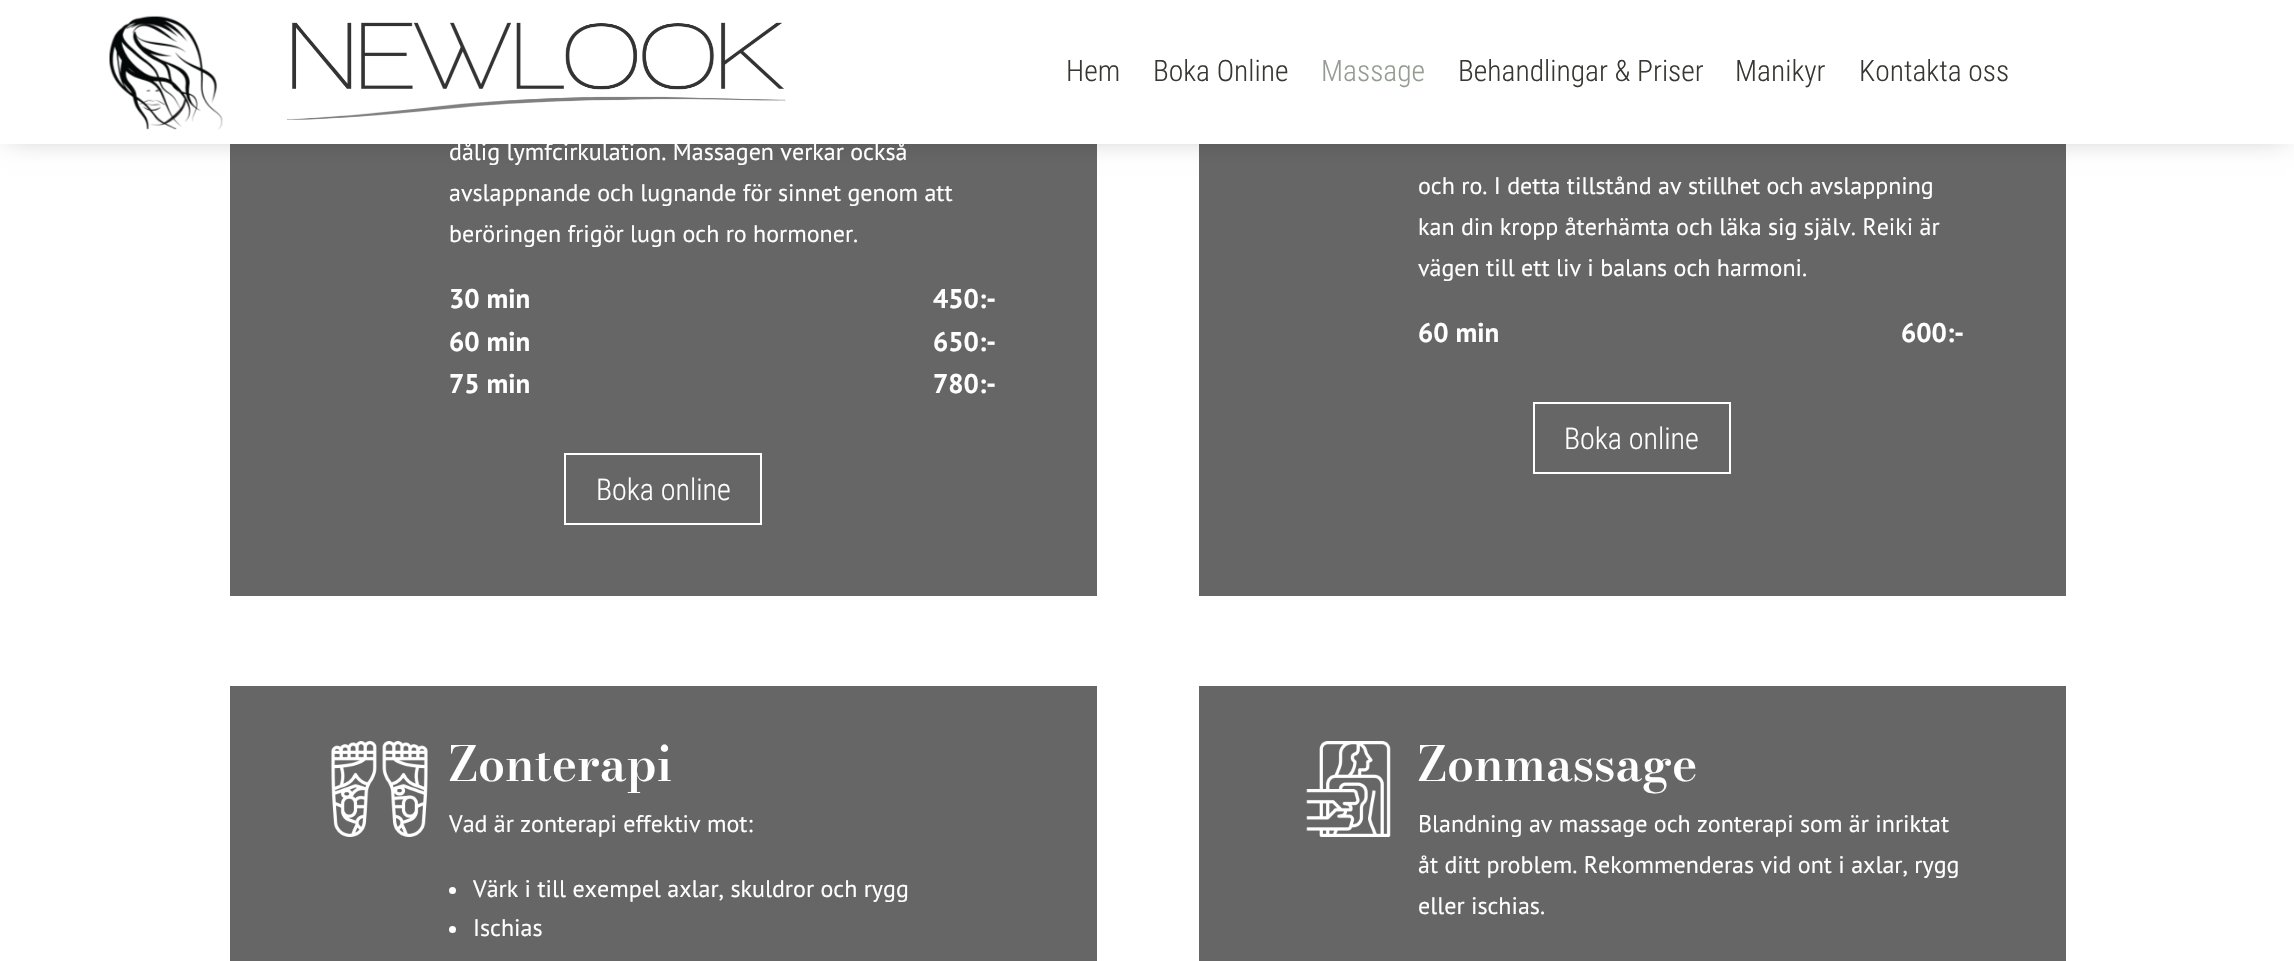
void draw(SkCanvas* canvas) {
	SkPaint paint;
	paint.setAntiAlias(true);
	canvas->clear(0xffffffff);
	paint.setColor(0xff666666);
	canvas->drawRect(SkRect::MakeXYWH(230, 144, 867, 452), paint);
	canvas->drawRect(SkRect::MakeXYWH(1199, 144, 867, 452), paint);
	paint.setColor(0x4d000000);
	paint.setMaskFilter(SkMaskFilter::MakeBlur(kNormal_SkBlurStyle, 13.5));
	canvas->drawRect(SkRect::MakeXYWH(9, 9, 2277, 126), paint);
	paint.setMaskFilter(nullptr);
	paint.setColor(0xffffffff);
	canvas->drawRect(SkRect::MakeXYWH(0, 0, 2294, 144), paint);
	canvas->drawImageRect(SkImages::DeferredFromEncodedData(SkData::MakeFromFileName("img1.png")), SkRect::MakeXYWH(109, 15, 114, 115), SkSamplingOptions());
	canvas->drawImageRect(SkImages::DeferredFromEncodedData(SkData::MakeFromFileName("img2.png")), SkRect::MakeXYWH(287, 22, 499, 98), SkSamplingOptions());
	SkFont f1(fontMgr->matchFamilyStyle("Roboto Condensed", SkFontStyle(300, SkFontStyle::kNormal_Width, SkFontStyle::kUpright_Slant)), 29.5);
	f1.setSubpixel(true);
	paint.setColor(0xff383833);
	canvas->drawString("Hem", 1066, 81, f1, paint);
	canvas->drawString("Boka Online", 1153, 81, f1, paint);
	paint.setColor(0xff959d93);
	canvas->drawString("Massage", 1321, 81, f1, paint);
	paint.setColor(0xff383833);
	canvas->drawString("Behandlingar & Priser", 1458, 81, f1, paint);
	canvas->drawString("Manikyr", 1735, 81, f1, paint);
	canvas->drawString("Kontakta oss", 1859, 81, f1, paint);
	SkFont f2(fontMgr->matchFamilyStyle("PT Sans", SkFontStyle::Normal()), 24);
	f2.setSubpixel(true);
	paint.setColor(0xffffffff);
	canvas->drawString("dålig lymfcirkulation. Massagen verkar också", 449, 160, f2, paint);
	canvas->drawString("avslappnande och lugnande för sinnet genom att", 449, 201, f2, paint);
	canvas->drawString("beröringen frigör lugn och ro hormoner.", 449, 242, f2, paint);
	SkFont f3(fontMgr->matchFamilyStyle("PT Sans", SkFontStyle::Bold()), 27);
	f3.setSubpixel(true);
	canvas->drawString("30 min", 449, 308, f3, paint);
	canvas->drawString("450:-", 933, 308, f3, paint);
	canvas->drawString("60 min", 449, 351, f3, paint);
	canvas->drawString("650:-", 933, 351, f3, paint);
	canvas->drawString("75 min", 449, 393, f3, paint);
	canvas->drawString("780:-", 933, 393, f3, paint);
	paint.setStroke(true);
	paint.setStrokeWidth(2);
	canvas->drawRect(SkRect::MakeXYWH(565, 454, 196, 70), paint);
	SkFont f4(fontMgr->matchFamilyStyle("Roboto Condensed", SkFontStyle(300, SkFontStyle::kNormal_Width, SkFontStyle::kUpright_Slant)), 30);
	f4.setSubpixel(true);
	paint.setStroke(false);
	canvas->drawString("Boka online", 596, 500, f4, paint);
	canvas->drawString("och ro. I detta tillstånd av stillhet och avslappning", 1418, 194, f2, paint);
	canvas->drawString("kan din kropp återhämta och läka sig själv. Reiki är", 1418, 235, f2, paint);
	canvas->drawString("vägen till ett liv i balans och harmoni.", 1418, 276, f2, paint);
	canvas->drawString("60 min", 1418, 342, f3, paint);
	canvas->drawString("600:-", 1901, 342, f3, paint);
	paint.setStroke(true);
	canvas->drawRect(SkRect::MakeXYWH(1534, 403, 196, 70), paint);
	paint.setStroke(false);
	canvas->drawString("Boka online", 1564, 449, f4, paint);
	paint.setColor(0xff666666);
	canvas->drawRect(SkRect::MakeXYWH(230, 686, 867, 275), paint);
	canvas->drawImageRect(SkImages::DeferredFromEncodedData(SkData::MakeFromFileName("img3.png")), SkRect::MakeXYWH(331, 741, 97, 96), SkSamplingOptions());
	SkFont f5(fontMgr->matchFamilyStyle("Bodoni Moda", SkFontStyle(600, SkFontStyle::kNormal_Width, SkFontStyle::kUpright_Slant)), 48);
	f5.setSubpixel(true);
	paint.setColor(0xffffffff);
	canvas->drawString("Zonterapi", 449, 781, f5, paint);
	canvas->drawString("Vad är zonterapi effektiv mot:", 449, 832, f2, paint);
	canvas->drawCircle(452.5, 890.5, 3.5, paint);
	canvas->drawString("Värk i till exempel axlar, skuldror och rygg", 473, 897, f2, paint);
	canvas->drawCircle(452.5, 929.5, 3.5, paint);
	canvas->drawString("Ischias", 473, 936, f2, paint);
	paint.setColor(0xff666666);
	canvas->drawRect(SkRect::MakeXYWH(1199, 686, 867, 275), paint);
	canvas->drawImageRect(SkImages::DeferredFromEncodedData(SkData::MakeFromFileName("img4.png")), SkRect::MakeXYWH(1306, 741, 85, 96), SkSamplingOptions());
	paint.setColor(0xffffffff);
	canvas->drawString("Zonmassage", 1418, 781, f5, paint);
	canvas->drawString("Blandning av massage och zonterapi som är inriktat", 1418, 832, f2, paint);
	canvas->drawString("åt ditt problem. Rekommenderas vid ont i axlar, rygg", 1418, 873, f2, paint);
	canvas->drawString("eller ischias.", 1418, 914, f2, paint);
}
